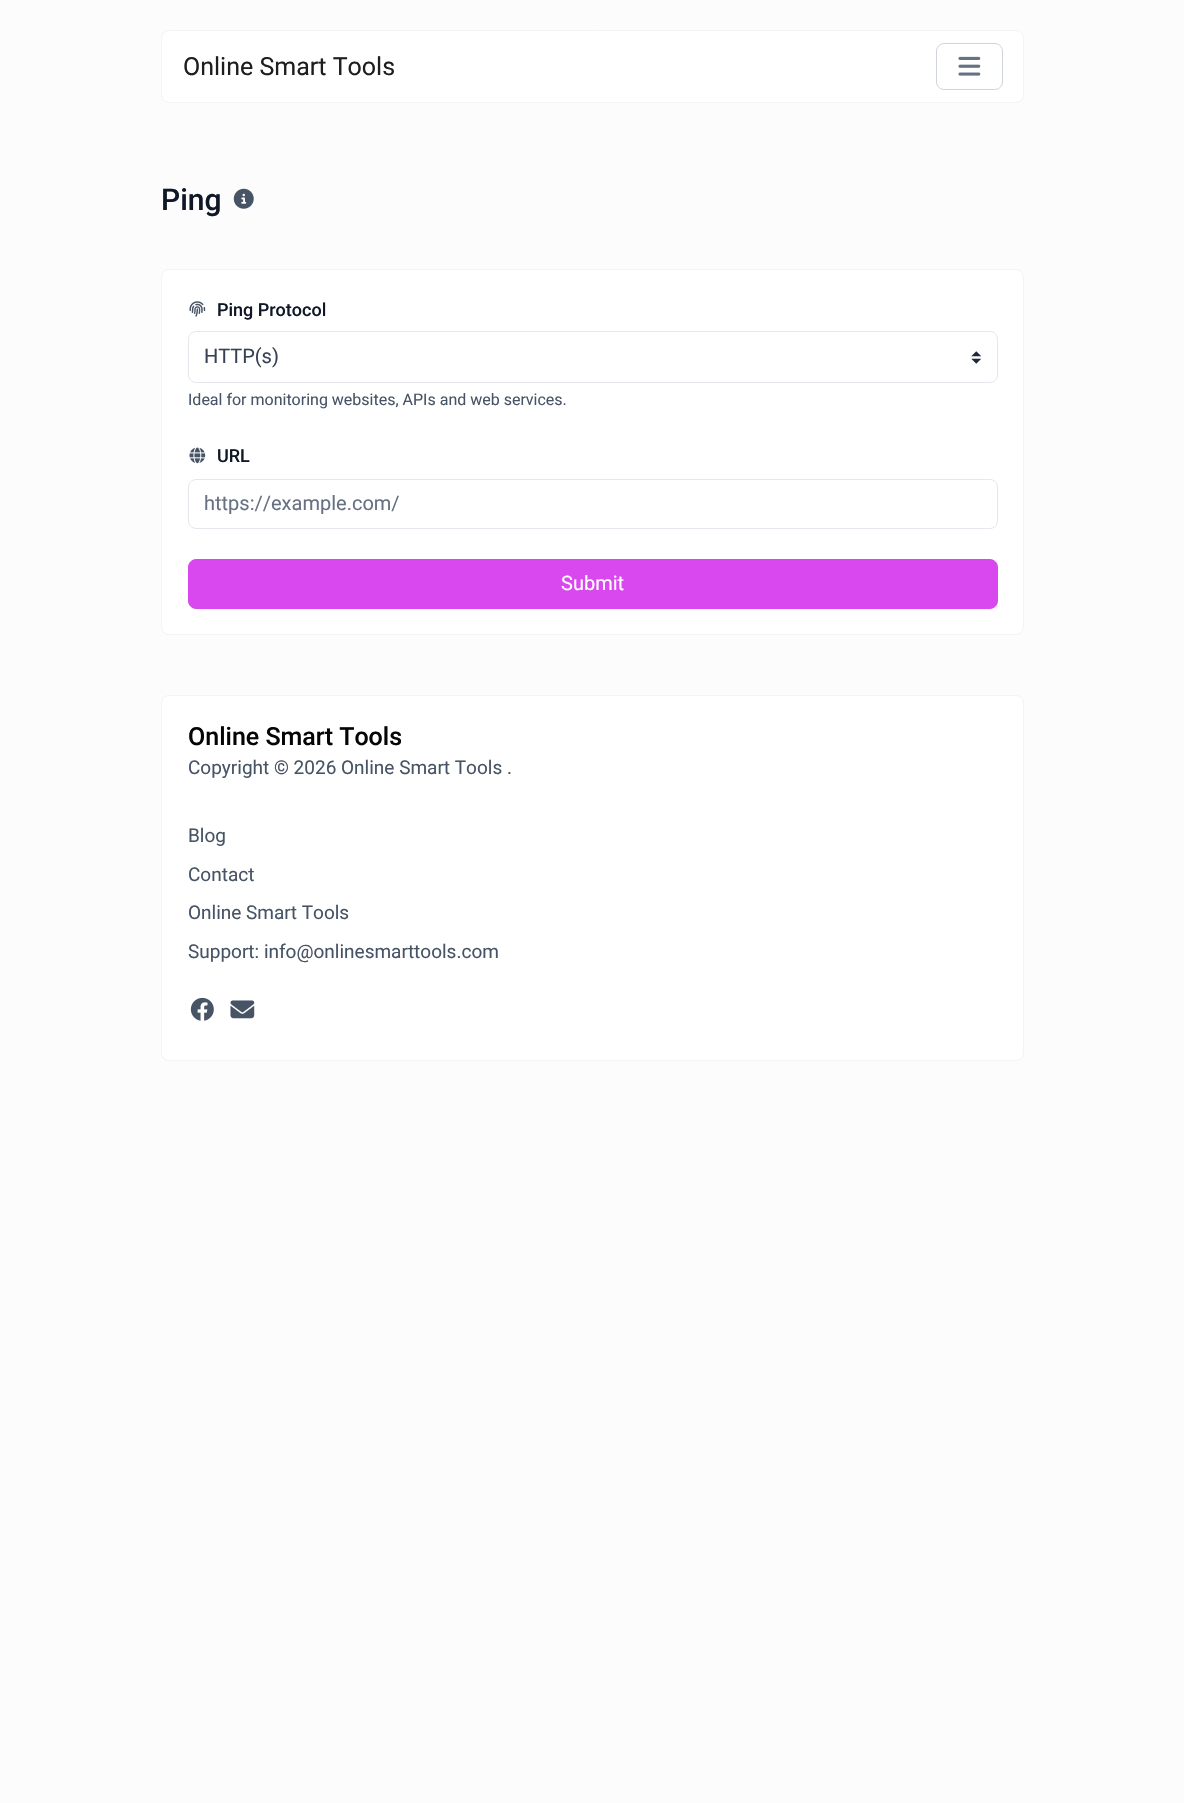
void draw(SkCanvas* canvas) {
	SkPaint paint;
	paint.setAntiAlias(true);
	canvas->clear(0xfffcfcfd);
	paint.setColor(0xffffffff);
	canvas->drawRoundRect(SkRect::MakeXYWH(161.5, 30.5, 862, 72), 7.5, 7.5, paint);
	paint.setStroke(true);
	paint.setStrokeWidth(1);
	paint.setColor(0xfff3f4f7);
	canvas->drawRoundRect(SkRect::MakeXYWH(161.5, 30.5, 862, 72), 7.5, 7.5, paint);
	SkFont f1(fontMgr->matchFamilyStyle("Roboto", SkFontStyle::Normal()), 25);
	f1.setSubpixel(true);
	paint.setStroke(false);
	paint.setColor(0xff1e1e1e);
	canvas->drawString("Online Smart Tools", 183, 75, f1, paint);
	paint.setStroke(true);
	paint.setColor(0xffd0d5dc);
	canvas->drawRoundRect(SkRect::MakeXYWH(936.5, 43.5, 66, 46), 7.5, 7.5, paint);
	canvas->drawImageRect(SkImages::DeferredFromEncodedData(SkData::MakeFromFileName("img1.png")), SkRect::MakeXYWH(958, 56, 23, 20), SkSamplingOptions());
	SkFont f2(fontMgr->matchFamilyStyle("Roboto", SkFontStyle(500, SkFontStyle::kNormal_Width, SkFontStyle::kUpright_Slant)), 30);
	f2.setSubpixel(true);
	paint.setStroke(false);
	paint.setColor(0xff101828);
	canvas->drawString("Ping", 161, 210, f2, paint);
	canvas->drawImageRect(SkImages::DeferredFromEncodedData(SkData::MakeFromFileName("img2.png")), SkRect::MakeXYWH(233, 188, 21, 21), SkSamplingOptions());
	paint.setColor(0xffffffff);
	canvas->drawRoundRect(SkRect::MakeXYWH(161.5, 269.5, 862, 365), 7.5, 7.5, paint);
	paint.setStroke(true);
	paint.setColor(0xfff3f4f7);
	canvas->drawRoundRect(SkRect::MakeXYWH(161.5, 269.5, 862, 365), 7.5, 7.5, paint);
	canvas->drawImageRect(SkImages::DeferredFromEncodedData(SkData::MakeFromFileName("img3.png")), SkRect::MakeXYWH(189, 301, 17, 16), SkSamplingOptions());
	SkFont f3(fontMgr->matchFamilyStyle("Roboto", SkFontStyle(500, SkFontStyle::kNormal_Width, SkFontStyle::kUpright_Slant)), 18);
	f3.setSubpixel(true);
	paint.setStroke(false);
	paint.setColor(0xff101828);
	canvas->drawString("Ping Protocol", 217, 316, f3, paint);
	canvas->drawImageRect(SkImages::DeferredFromEncodedData(SkData::MakeFromFileName("img4.png")), SkRect::MakeXYWH(971, 351, 10, 13), SkSamplingOptions());
	paint.setStroke(true);
	paint.setColor(0xffe4e7ec);
	canvas->drawRoundRect(SkRect::MakeXYWH(188.5, 331.5, 809, 51), 7.5, 7.5, paint);
	SkFont f4(fontMgr->matchFamilyStyle("Roboto", SkFontStyle::Normal()), 20);
	f4.setSubpixel(true);
	paint.setStroke(false);
	paint.setColor(0xff364154);
	canvas->drawString("HTTP(s)", 204, 363, f4, paint);
	SkFont f5(fontMgr->matchFamilyStyle("Roboto", SkFontStyle::Normal()), 16);
	f5.setSubpixel(true);
	paint.setColor(0xff475466);
	canvas->drawString("Ideal for monitoring websites, APIs and web services.", 188, 405, f5, paint);
	canvas->drawImageRect(SkImages::DeferredFromEncodedData(SkData::MakeFromFileName("img5.png")), SkRect::MakeXYWH(189, 447, 17, 17), SkSamplingOptions());
	paint.setColor(0xff101828);
	canvas->drawString("URL", 217, 462, f3, paint);
	paint.setStroke(true);
	paint.setColor(0xffe4e7ec);
	canvas->drawRoundRect(SkRect::MakeXYWH(188.5, 479.5, 809, 49), 7.5, 7.5, paint);
	paint.setStroke(false);
	paint.setColor(0xff677183);
	canvas->drawString("https://example.com/", 204, 510, f4, paint);
	paint.setColor(0xffd948ef);
	canvas->drawRoundRect(SkRect::MakeXYWH(188.5, 559.5, 809, 49), 7.5, 7.5, paint);
	paint.setStroke(true);
	canvas->drawRoundRect(SkRect::MakeXYWH(188.5, 559.5, 809, 49), 7.5, 7.5, paint);
	paint.setStroke(false);
	paint.setColor(0xffffffff);
	canvas->drawString("Submit", 561, 590, f4, paint);
	canvas->drawRoundRect(SkRect::MakeXYWH(161.5, 695.5, 862, 365), 7.5, 7.5, paint);
	paint.setStroke(true);
	paint.setColor(0xfff3f4f7);
	canvas->drawRoundRect(SkRect::MakeXYWH(161.5, 695.5, 862, 365), 7.5, 7.5, paint);
	SkFont f6(fontMgr->matchFamilyStyle("Roboto", SkFontStyle(500, SkFontStyle::kNormal_Width, SkFontStyle::kUpright_Slant)), 25);
	f6.setSubpixel(true);
	paint.setStroke(false);
	paint.setColor(0xff050505);
	canvas->drawString("Online Smart Tools", 188, 745, f6, paint);
	SkFont f7(fontMgr->matchFamilyStyle("Roboto", SkFontStyle::Normal()), 19);
	f7.setSubpixel(true);
	paint.setColor(0xff475466);
	canvas->drawString("Copyright © 2026 Online Smart Tools .", 188, 774, f7, paint);
	canvas->drawString("Blog", 188, 842, f7, paint);
	canvas->drawString("Contact", 188, 881, f7, paint);
	canvas->drawString("Online Smart Tools", 188, 919, f7, paint);
	canvas->drawString("Support: info@onlinesmarttools.com", 188, 958, f7, paint);
	canvas->drawImageRect(SkImages::DeferredFromEncodedData(SkData::MakeFromFileName("img6.png")), SkRect::MakeXYWH(190, 997, 24, 24), SkSamplingOptions());
	canvas->drawImageRect(SkImages::DeferredFromEncodedData(SkData::MakeFromFileName("img7.png")), SkRect::MakeXYWH(230, 1000, 25, 19), SkSamplingOptions());
}
